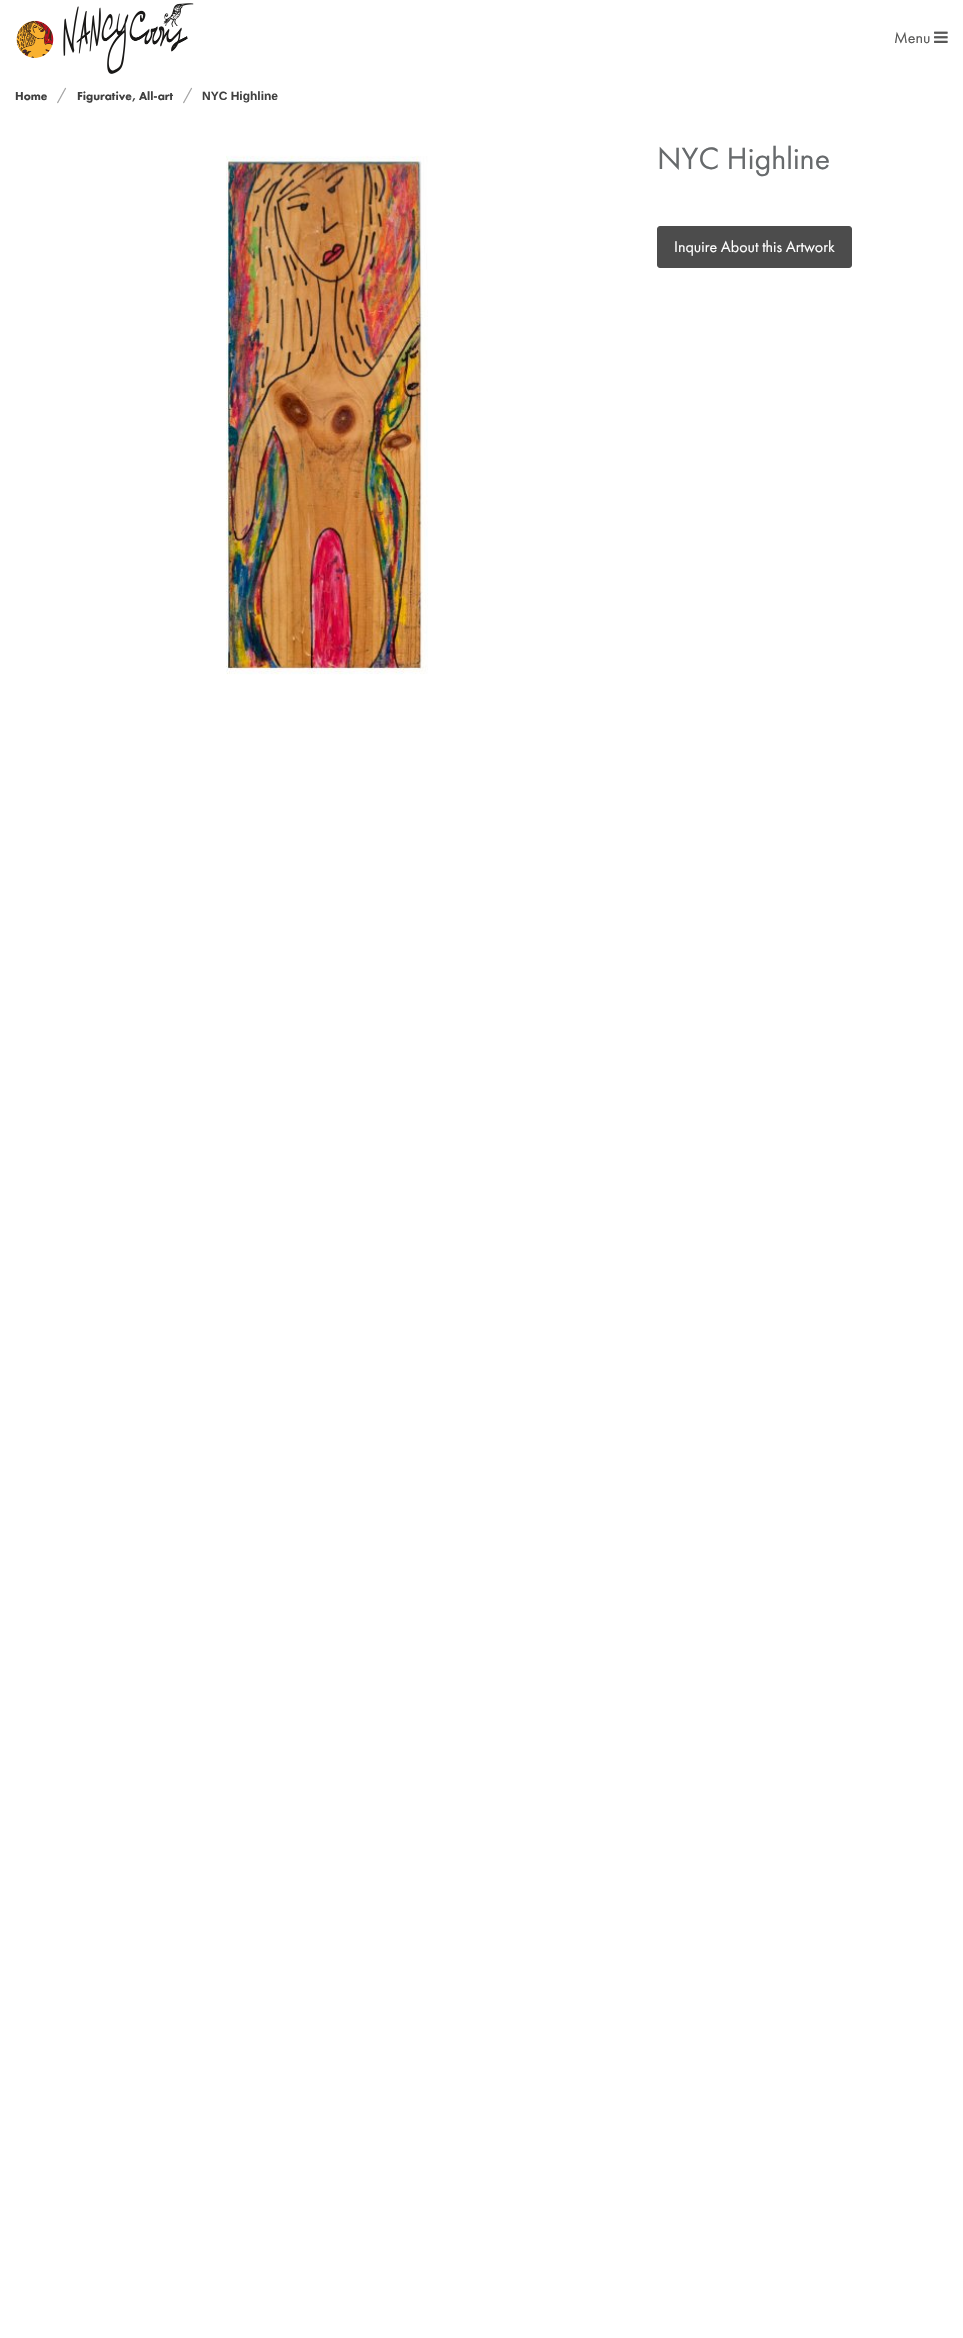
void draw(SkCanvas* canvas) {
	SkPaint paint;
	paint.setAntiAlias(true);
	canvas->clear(0xffffffff);
	canvas->drawImageRect(SkImages::DeferredFromEncodedData(SkData::MakeFromFileName("img1.png")), SkRect::MakeXYWH(16, 3, 178, 71), SkSamplingOptions());
	SkFont f1(fontMgr->matchFamilyStyle("Futura PT", SkFontStyle::Normal()), 16);
	f1.setSubpixel(true);
	paint.setColor(0xff575756);
	canvas->drawString("Menu", 894, 43, f1, paint);
	canvas->drawImageRect(SkImages::DeferredFromEncodedData(SkData::MakeFromFileName("img2.png")), SkRect::MakeXYWH(934, 31, 14, 12), SkSamplingOptions());
	SkFont f2(fontMgr->matchFamilyStyle("Futura PT", SkFontStyle(900, SkFontStyle::kNormal_Width, SkFontStyle::kUpright_Slant)), 12);
	f2.setSubpixel(true);
	paint.setColor(0xff404040);
	canvas->drawString("Home", 15, 100, f2, paint);
	paint.setColor(0xffa3a3a3);
	canvas->drawString("/", 57, 100, f1, paint);
	paint.setColor(0xff404040);
	canvas->drawString("Figurative, All-art", 77, 100, f2, paint);
	paint.setColor(0xffa3a3a3);
	canvas->drawString("/", 183, 100, f1, paint);
	SkFont f3(fontMgr->matchFamilyStyle("Liberation Sans", SkFontStyle::Bold()), 12);
	f3.setSubpixel(true);
	paint.setColor(0xff404040);
	canvas->drawString("NYC Highline", 202, 100, f3, paint);
	canvas->drawImageRect(SkImages::DeferredFromEncodedData(SkData::MakeFromFileName("img3.png")), SkRect::MakeXYWH(226, 155, 202, 520), SkSamplingOptions());
	SkFont f4(fontMgr->matchFamilyStyle("Futura PT", SkFontStyle::Normal()), 32);
	f4.setSubpixel(true);
	paint.setColor(0xff676a6c);
	canvas->drawString("NYC Highline", 657, 169, f4, paint);
	paint.setColor(0xff4c4c4c);
	canvas->drawRoundRect(SkRect::MakeXYWH(657.5, 226.5, 194, 41), 2.5, 2.5, paint);
	paint.setStroke(true);
	paint.setStrokeWidth(1);
	canvas->drawRoundRect(SkRect::MakeXYWH(657.5, 226.5, 194, 41), 2.5, 2.5, paint);
	paint.setStroke(false);
	paint.setColor(0xffffffff);
	canvas->drawString("Inquire About this Artwork", 674, 252, f1, paint);
}
